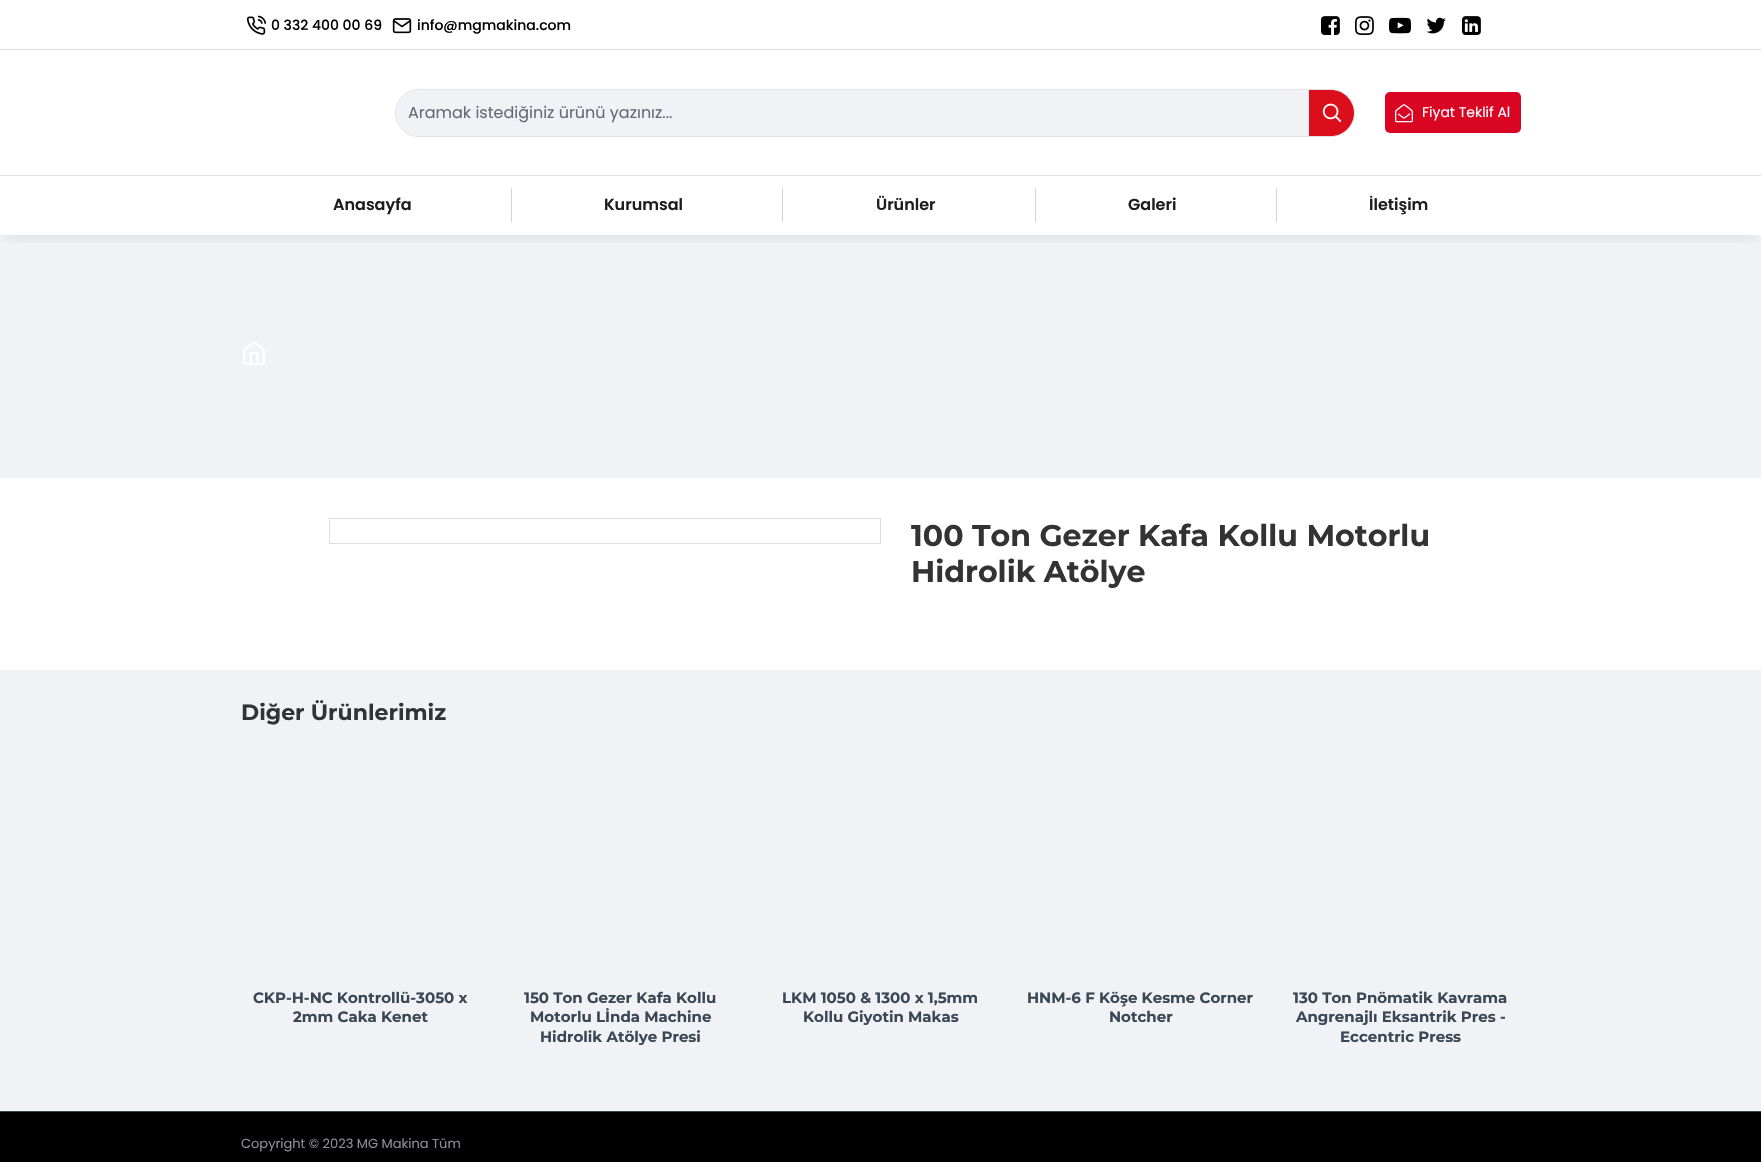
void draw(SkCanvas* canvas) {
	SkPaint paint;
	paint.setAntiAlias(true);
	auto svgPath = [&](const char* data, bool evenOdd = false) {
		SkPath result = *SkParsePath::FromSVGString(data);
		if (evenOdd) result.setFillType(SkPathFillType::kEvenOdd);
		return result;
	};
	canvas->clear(0xffffffff);
	paint.setColor(0xfff0f2f5);
	canvas->drawRect(SkRect::MakeXYWH(0, 235, 1761, 243), paint);
	canvas->save();
	canvas->clipRect(SkRect::MakeXYWH(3, 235, 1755, 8));
	paint.setColor(0x1a000000);
	paint.setMaskFilter(SkMaskFilter::MakeBlur(kNormal_SkBlurStyle, 10));
	canvas->drawRect(SkRect::MakeXYWH(5, 10, 1751, 225), paint);
	paint.setMaskFilter(nullptr);
	canvas->restore();
	canvas->drawImageRect(SkImages::DeferredFromEncodedData(SkData::MakeFromFileName("img1.png")), SkRect::MakeXYWH(246, 15, 20, 20), SkSamplingOptions());
	SkFont f1(fontMgr->matchFamilyStyle("Poppins", SkFontStyle(500, SkFontStyle::kNormal_Width, SkFontStyle::kUpright_Slant)), 14);
	f1.setSubpixel(true);
	paint.setColor(0xff000000);
	canvas->drawString("0 332 400 00 69", 271, 30, f1, paint);
	canvas->drawImageRect(SkImages::DeferredFromEncodedData(SkData::MakeFromFileName("img2.png")), SkRect::MakeXYWH(392, 18, 20, 16), SkSamplingOptions());
	canvas->drawString("info@mgmakina.com", 417, 30, f1, paint);
	canvas->drawImageRect(SkImages::DeferredFromEncodedData(SkData::MakeFromFileName("img3.png")), SkRect::MakeXYWH(1321, 16, 19, 19), SkSamplingOptions());
	canvas->drawImageRect(SkImages::DeferredFromEncodedData(SkData::MakeFromFileName("img4.png")), SkRect::MakeXYWH(1355, 16, 19, 19), SkSamplingOptions());
	canvas->drawImageRect(SkImages::DeferredFromEncodedData(SkData::MakeFromFileName("img5.png")), SkRect::MakeXYWH(1389, 17, 22, 17), SkSamplingOptions());
	canvas->drawImageRect(SkImages::DeferredFromEncodedData(SkData::MakeFromFileName("img6.png")), SkRect::MakeXYWH(1426, 17, 20, 17), SkSamplingOptions());
	canvas->drawImageRect(SkImages::DeferredFromEncodedData(SkData::MakeFromFileName("img7.png")), SkRect::MakeXYWH(1462, 16, 19, 19), SkSamplingOptions());
	paint.setStroke(true);
	paint.setStrokeWidth(1);
	paint.setColor(0xffe1e1e1);
	canvas->drawRoundRect(SkRect::MakeXYWH(395.5, 89.5, 959, 47), 23.5, 23.5, paint);
	paint.setStroke(false);
	paint.setColor(0xfff0f2f5);
	canvas->drawPath(svgPath("M419 90H1309V136H419C406.5 136 396 125.5 396 113C396 100.5 406.5 90 419 90Z"), paint);
	SkFont f2(fontMgr->matchFamilyStyle("Poppins", SkFontStyle::Normal()), 16);
	f2.setSubpixel(true);
	paint.setColor(0xff696973);
	canvas->drawString("Aramak istediğiniz ürünü yazınız...", 408, 118, f2, paint);
	paint.setColor(0xffdd0e1c);
	canvas->drawPath(svgPath("M1309 90H1331C1343.5 90 1354 100.5 1354 113C1354 125.5 1343.5 136 1331 136H1309Z"), paint);
	canvas->drawImageRect(SkImages::DeferredFromEncodedData(SkData::MakeFromFileName("img8.png")), SkRect::MakeXYWH(1322, 103, 20, 19), SkSamplingOptions());
	paint.setColor(0xffda0523);
	canvas->drawRoundRect(SkRect::MakeXYWH(1385, 92, 136, 41), 5, 5, paint);
	canvas->drawImageRect(SkImages::DeferredFromEncodedData(SkData::MakeFromFileName("img9.png")), SkRect::MakeXYWH(1395, 104, 18, 19), SkSamplingOptions());
	SkFont f3(fontMgr->matchFamilyStyle("Poppins", SkFontStyle::Normal()), 14);
	f3.setSubpixel(true);
	paint.setColor(0xffffffff);
	canvas->drawString("Fiyat Teklif Al", 1422, 117, f3, paint);
	paint.setColor(0xffdddddd);
	canvas->drawRect(SkRect::MakeXYWH(0, 175, 1761, 1), paint);
	SkFont f4(fontMgr->matchFamilyStyle("Poppins", SkFontStyle(600, SkFontStyle::kNormal_Width, SkFontStyle::kUpright_Slant)), 16);
	f4.setSubpixel(true);
	paint.setColor(0xff1d1d1d);
	canvas->drawString("Anasayfa", 333, 210, f4, paint);
	paint.setColor(0xffd3d3d3);
	canvas->drawRect(SkRect::MakeXYWH(511, 188, 1, 34), paint);
	paint.setColor(0xff1d1d1d);
	canvas->drawString("Kurumsal", 604, 210, f4, paint);
	paint.setColor(0xffd3d3d3);
	canvas->drawRect(SkRect::MakeXYWH(782, 188, 1, 34), paint);
	paint.setColor(0xff1d1d1d);
	canvas->drawString("Ürünler", 876, 210, f4, paint);
	paint.setColor(0xffd3d3d3);
	canvas->drawRect(SkRect::MakeXYWH(1035, 188, 1, 34), paint);
	paint.setColor(0xff1d1d1d);
	canvas->drawString("Galeri", 1128, 210, f4, paint);
	paint.setColor(0xffd3d3d3);
	canvas->drawRect(SkRect::MakeXYWH(1276, 188, 1, 34), paint);
	paint.setColor(0xff1d1d1d);
	canvas->drawString("İletişim", 1369, 210, f4, paint);
	paint.setColor(0xffdddddd);
	canvas->drawRect(SkRect::MakeXYWH(0, 49, 1761, 1), paint);
	canvas->drawImageRect(SkImages::DeferredFromEncodedData(SkData::MakeFromFileName("img10.png")), SkRect::MakeXYWH(243, 341, 22, 24), SkSamplingOptions());
	paint.setStroke(true);
	canvas->drawRect(SkRect::MakeXYWH(329.5, 518.5, 551, 25), paint);
	SkFont f5(fontMgr->matchFamilyStyle("Montserrat", SkFontStyle::Bold()), 30);
	f5.setSubpixel(true);
	paint.setStroke(false);
	paint.setColor(0xff333333);
	canvas->drawString("100 Ton Gezer Kafa Kollu Motorlu", 911, 546, f5, paint);
	canvas->drawString("Hidrolik Atölye", 911, 582, f5, paint);
	paint.setColor(0xfff0f2f5);
	canvas->drawRect(SkRect::MakeXYWH(0, 670, 1761, 441), paint);
	SkFont f6(fontMgr->matchFamilyStyle("Montserrat", SkFontStyle::Bold()), 22);
	f6.setSubpixel(true);
	paint.setColor(0xff333333);
	canvas->drawString("Diğer Ürünlerimiz", 241, 720, f6, paint);
	SkFont f7(fontMgr->matchFamilyStyle("Montserrat", SkFontStyle::Bold()), 15);
	f7.setSubpixel(true);
	paint.setColor(0xff3a4754);
	canvas->drawString("CKP-H-NC Kontrollü-3050 x", 253, 1003, f7, paint);
	canvas->drawString("2mm Caka Kenet", 293, 1022, f7, paint);
	canvas->drawString("150 Ton Gezer Kafa Kollu", 524, 1003, f7, paint);
	canvas->drawString("Motorlu Lİnda Machine", 530, 1022, f7, paint);
	canvas->drawString("Hidrolik Atölye Presi", 540, 1042, f7, paint);
	canvas->drawString("LKM 1050 & 1300 x 1,5mm", 782, 1003, f7, paint);
	canvas->drawString("Kollu Giyotin Makas", 803, 1022, f7, paint);
	canvas->drawString("HNM-6 F Köşe Kesme Corner", 1027, 1003, f7, paint);
	canvas->drawString("Notcher", 1109, 1022, f7, paint);
	canvas->drawString("130 Ton Pnömatik Kavrama", 1293, 1003, f7, paint);
	canvas->drawString("Angrenajlı Eksantrik Pres -", 1296, 1022, f7, paint);
	canvas->drawString("Eccentric Press", 1340, 1042, f7, paint);
	paint.setColor(0xff000000);
	canvas->drawRect(SkRect::MakeXYWH(0, 1112, 1761, 50), paint);
	paint.setColor(0xff3a4754);
	canvas->drawRect(SkRect::MakeXYWH(0, 1111, 1761, 1), paint);
	SkFont f8(fontMgr->matchFamilyStyle("Poppins", SkFontStyle::Normal()), 13);
	f8.setSubpixel(true);
	paint.setColor(0xff8b9198);
	canvas->drawString("Copyright © 2023 MG Makina Tüm", 241, 1148, f8, paint);
}
